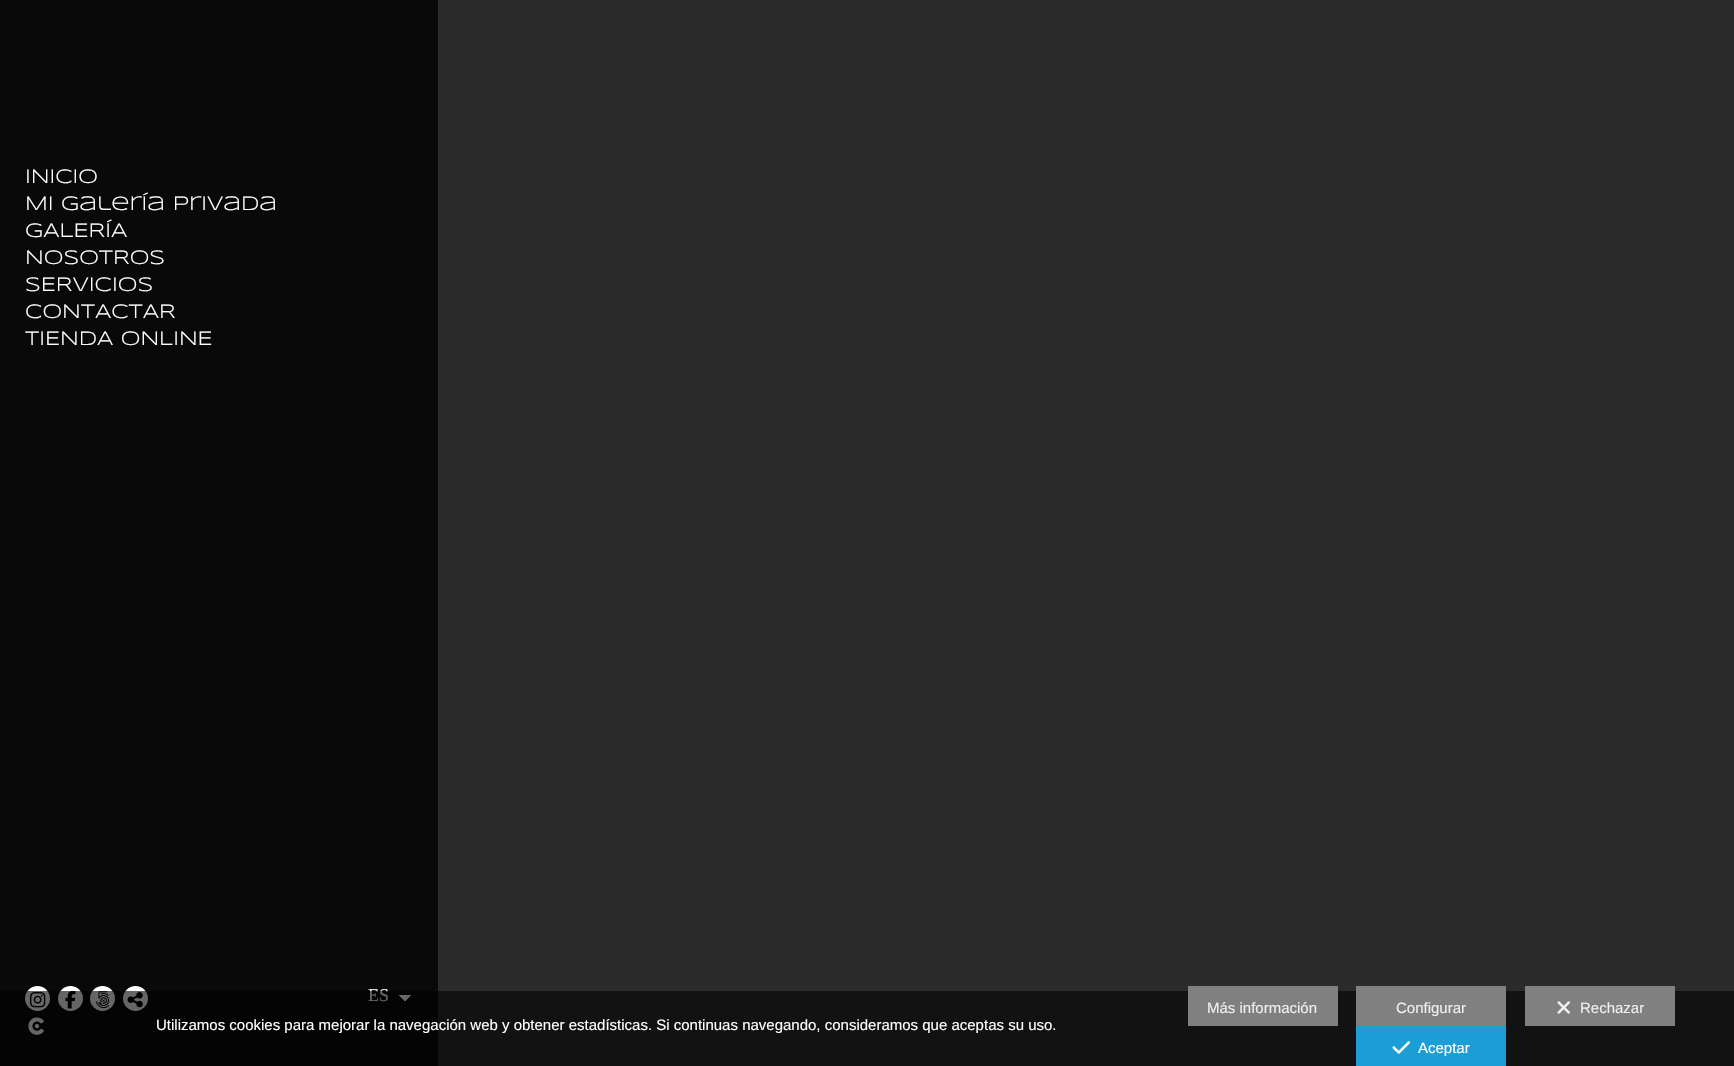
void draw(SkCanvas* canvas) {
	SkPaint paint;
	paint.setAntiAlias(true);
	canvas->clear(0xff2b2b2b);
	paint.setColor(0xff090909);
	canvas->drawRect(SkRect::MakeXYWH(0, 0, 438, 1066), paint);
	SkFont f1(fontMgr->matchFamilyStyle("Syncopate", SkFontStyle::Normal()), 20);
	f1.setSubpixel(true);
	paint.setColor(0xffffffff);
	canvas->drawString("INICIO", 25, 183, f1, paint);
	canvas->drawString("Mi galería privada", 25, 210, f1, paint);
	canvas->drawString("GALERÍA", 25, 237, f1, paint);
	canvas->drawString("NOSOTROS", 25, 264, f1, paint);
	canvas->drawString("SERVICIOS", 25, 291, f1, paint);
	canvas->drawString("CONTACTAR", 25, 318, f1, paint);
	canvas->drawString("TIENDA ONLINE", 25, 345, f1, paint);
	canvas->drawCircle(37.5, 998.5, 12.5, paint);
	canvas->drawImageRect(SkImages::DeferredFromEncodedData(SkData::MakeFromFileName("img1.png")), SkRect::MakeXYWH(30, 992, 16, 16), SkSamplingOptions());
	canvas->drawCircle(70.5, 998.5, 12.5, paint);
	canvas->drawImageRect(SkImages::DeferredFromEncodedData(SkData::MakeFromFileName("img2.png")), SkRect::MakeXYWH(65, 990, 11, 19), SkSamplingOptions());
	canvas->drawCircle(102.5, 998.5, 12.5, paint);
	canvas->drawImageRect(SkImages::DeferredFromEncodedData(SkData::MakeFromFileName("img3.png")), SkRect::MakeXYWH(96, 991, 14, 18), SkSamplingOptions());
	canvas->drawCircle(135.5, 998.5, 12.5, paint);
	canvas->drawImageRect(SkImages::DeferredFromEncodedData(SkData::MakeFromFileName("img4.png")), SkRect::MakeXYWH(127, 992, 16, 16), SkSamplingOptions());
	{
		const SkColor colors[] = {0xffffffff, 0xff090909};
		const float stops[] = {0.5, 0.5};
		const SkPoint ends[] = {{405, 995}, {411, 1002}};
		paint.setShader(SkGradientShader::MakeLinear(ends, colors, stops, 2, SkTileMode::kClamp));
		paint.setAlpha(255);
	}
	canvas->drawRect(SkRect::MakeXYWH(405, 995, 6, 6), paint);
	{
		const SkColor colors[] = {0xff090909, 0xffffffff};
		const float stops[] = {0.5, 0.5};
		const SkPoint ends[] = {{399, 1002}, {405, 995}};
		paint.setShader(SkGradientShader::MakeLinear(ends, colors, stops, 2, SkTileMode::kClamp));
		paint.setAlpha(255);
	}
	canvas->drawRect(SkRect::MakeXYWH(399, 995, 6, 6), paint);
	SkFont f2(fontMgr->matchFamilyStyle("Liberation Serif", SkFontStyle::Normal()), 18);
	f2.setSubpixel(true);
	paint.setShader(nullptr);
	paint.setColor(0xffffffff);
	canvas->drawString("ES", 368, 1001, f2, paint);
	canvas->drawImageRect(SkImages::DeferredFromEncodedData(SkData::MakeFromFileName("img5.png")), SkRect::MakeXYWH(28, 1017, 17, 18), SkSamplingOptions());
	paint.setColor(0x99000000);
	canvas->drawRect(SkRect::MakeXYWH(0, 991, 1734, 75), paint);
	SkFont f3(fontMgr->matchFamilyStyle("Liberation Sans", SkFontStyle::Normal()), 15);
	f3.setSubpixel(true);
	paint.setColor(0xffffffff);
	canvas->drawString("Utilizamos cookies para mejorar la navegación web y obtener estadísticas. Si continuas navegando, consideramos que aceptas su uso.", 156, 1030, f3, paint);
	paint.setColor(0xff808080);
	canvas->drawRect(SkRect::MakeXYWH(1188, 986, 150, 40), paint);
	paint.setColor(0xfff0f0f0);
	canvas->drawString("Más información", 1207, 1013, f3, paint);
	paint.setColor(0xff808080);
	canvas->drawRect(SkRect::MakeXYWH(1356, 986, 150, 40), paint);
	paint.setColor(0xfff0f0f0);
	canvas->drawString("Configurar", 1396, 1013, f3, paint);
	paint.setColor(0xff808080);
	canvas->drawRect(SkRect::MakeXYWH(1525, 986, 150, 40), paint);
	canvas->drawImageRect(SkImages::DeferredFromEncodedData(SkData::MakeFromFileName("img6.png")), SkRect::MakeXYWH(1557, 1001, 13, 13), SkSamplingOptions());
	paint.setColor(0xfff0f0f0);
	canvas->drawString("Rechazar", 1580, 1013, f3, paint);
	paint.setColor(0xff1a9ed5);
	canvas->drawRect(SkRect::MakeXYWH(1356, 1026, 150, 40), paint);
	canvas->drawImageRect(SkImages::DeferredFromEncodedData(SkData::MakeFromFileName("img7.png")), SkRect::MakeXYWH(1392, 1041, 18, 13), SkSamplingOptions());
	paint.setColor(0xffffffff);
	canvas->drawString("Aceptar", 1418, 1053, f3, paint);
}
